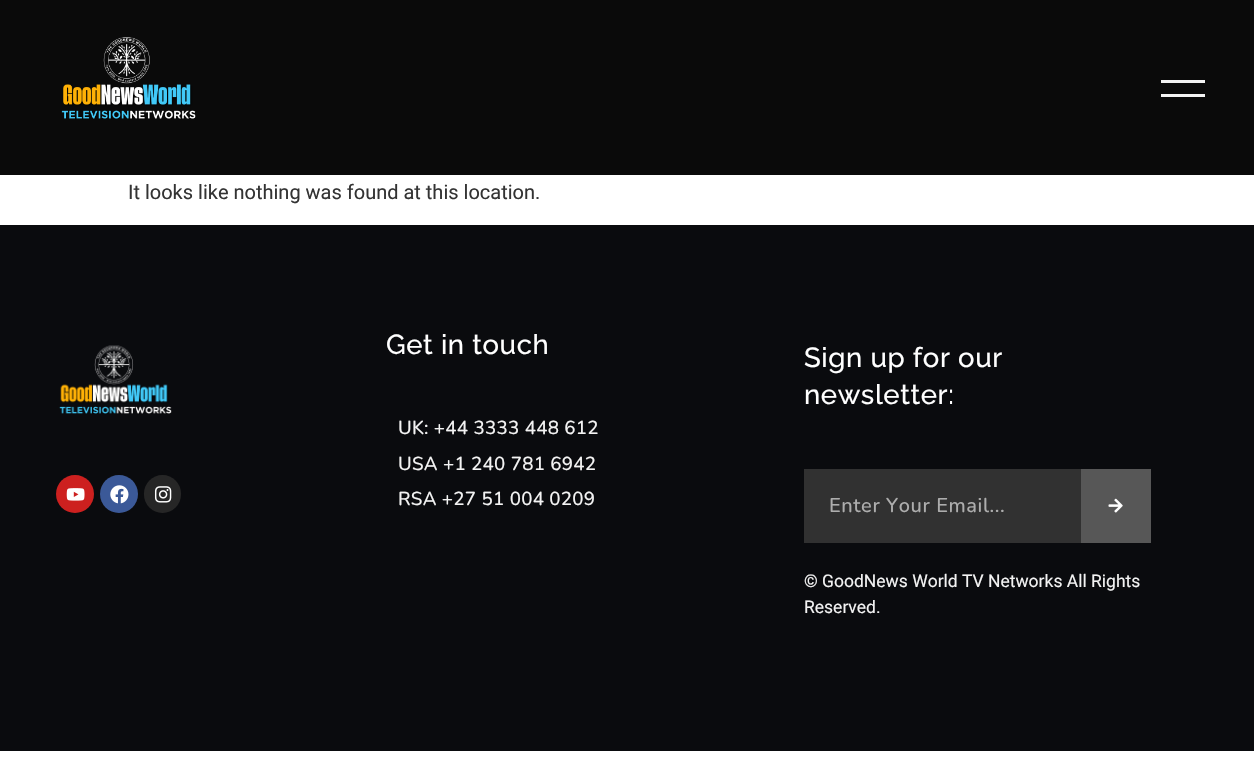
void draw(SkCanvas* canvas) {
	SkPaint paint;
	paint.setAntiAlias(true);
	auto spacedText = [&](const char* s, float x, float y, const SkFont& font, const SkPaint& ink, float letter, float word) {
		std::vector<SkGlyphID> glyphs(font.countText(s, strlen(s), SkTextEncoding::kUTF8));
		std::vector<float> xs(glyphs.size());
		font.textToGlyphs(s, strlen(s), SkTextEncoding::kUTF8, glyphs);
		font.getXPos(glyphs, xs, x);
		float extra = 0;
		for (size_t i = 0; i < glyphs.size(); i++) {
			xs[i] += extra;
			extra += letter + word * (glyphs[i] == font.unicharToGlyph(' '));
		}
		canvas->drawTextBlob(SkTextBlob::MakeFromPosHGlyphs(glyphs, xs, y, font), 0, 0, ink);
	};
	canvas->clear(0xffffffff);
	paint.setColor(0xff0a0a0a);
	canvas->drawRect(SkRect::MakeXYWH(0, 0, 1254, 175), paint);
	canvas->drawImageRect(SkImages::DeferredFromEncodedData(SkData::MakeFromFileName("img1.png")), SkRect::MakeXYWH(61, 37, 135, 82), SkSamplingOptions());
	paint.setColor(0xfff3f3f3);
	canvas->drawRect(SkRect::MakeXYWH(1161, 80, 44, 3), paint);
	canvas->drawRect(SkRect::MakeXYWH(1161, 94, 44, 3), paint);
	SkFont f1(fontMgr->matchFamilyStyle("Roboto", SkFontStyle::Normal()), 20);
	f1.setSubpixel(true);
	paint.setColor(0xff333333);
	canvas->drawString("It looks like nothing was found at this location.", 128, 199, f1, paint);
	paint.setColor(0xff0a0b0e);
	canvas->drawRect(SkRect::MakeXYWH(0, 225, 1254, 526), paint);
	canvas->drawImageRect(SkImages::DeferredFromEncodedData(SkData::MakeFromFileName("img2.png")), SkRect::MakeXYWH(59, 345, 113, 69), SkSamplingOptions());
	paint.setColor(0xffcd201f);
	canvas->drawCircle(75, 494, 19, paint);
	canvas->drawImageRect(SkImages::DeferredFromEncodedData(SkData::MakeFromFileName("img3.png")), SkRect::MakeXYWH(66, 488, 19, 13), SkSamplingOptions());
	paint.setColor(0xff3b5998);
	canvas->drawCircle(119, 494, 19, paint);
	canvas->drawImageRect(SkImages::DeferredFromEncodedData(SkData::MakeFromFileName("img4.png")), SkRect::MakeXYWH(110, 485, 19, 19), SkSamplingOptions());
	paint.setColor(0xff262626);
	canvas->drawRoundRect(SkRect::MakeXYWH(144, 475, 37, 38), 18.5, 18.5, paint);
	canvas->drawImageRect(SkImages::DeferredFromEncodedData(SkData::MakeFromFileName("img5.png")), SkRect::MakeXYWH(154, 486, 18, 17), SkSamplingOptions());
	SkFont f2(fontMgr->matchFamilyStyle("Raleway", SkFontStyle(500, SkFontStyle::kNormal_Width, SkFontStyle::kUpright_Slant)), 27.5);
	f2.setSubpixel(true);
	paint.setColor(0xffffffff);
	spacedText("Get in touch", 386, 354, f2, paint, 0.6, 0);
	SkFont f3(fontMgr->matchFamilyStyle("Nunito", SkFontStyle(500, SkFontStyle::kNormal_Width, SkFontStyle::kUpright_Slant)), 18.75);
	f3.setSubpixel(true);
	paint.setColor(0xfff3f3f3);
	spacedText("UK: +44 3333 448 612", 398, 434, f3, paint, 0.25, 0);
	spacedText("USA +1 240 781 6942", 398, 470, f3, paint, 0.25, 0);
	spacedText("RSA +27 51 004 0209", 398, 505, f3, paint, 0.25, 0);
	paint.setColor(0xffffffff);
	spacedText("Sign up for our", 804, 367, f2, paint, 0.6, 0);
	spacedText("newsletter:", 804, 404, f2, paint, 0.6, 0);
	paint.setColor(0xff313131);
	canvas->drawRect(SkRect::MakeXYWH(804, 469, 277, 74), paint);
	SkFont f4(fontMgr->matchFamilyStyle("Nunito", SkFontStyle(500, SkFontStyle::kNormal_Width, SkFontStyle::kUpright_Slant)), 20);
	f4.setSubpixel(true);
	paint.setColor(0xffadadad);
	spacedText("Enter Your Email...", 829, 512, f4, paint, 0.6, 0);
	paint.setColor(0xff575757);
	canvas->drawRect(SkRect::MakeXYWH(1081, 469, 70, 74), paint);
	canvas->drawImageRect(SkImages::DeferredFromEncodedData(SkData::MakeFromFileName("img6.png")), SkRect::MakeXYWH(1108, 498, 15, 15), SkSamplingOptions());
	SkFont f5(fontMgr->matchFamilyStyle("Roboto", SkFontStyle::Normal()), 17.5);
	f5.setSubpixel(true);
	paint.setColor(0xfff3f3f3);
	canvas->drawString("© GoodNews World TV Networks All Rights", 804, 587, f5, paint);
	canvas->drawString("Reserved.", 804, 613, f5, paint);
}
